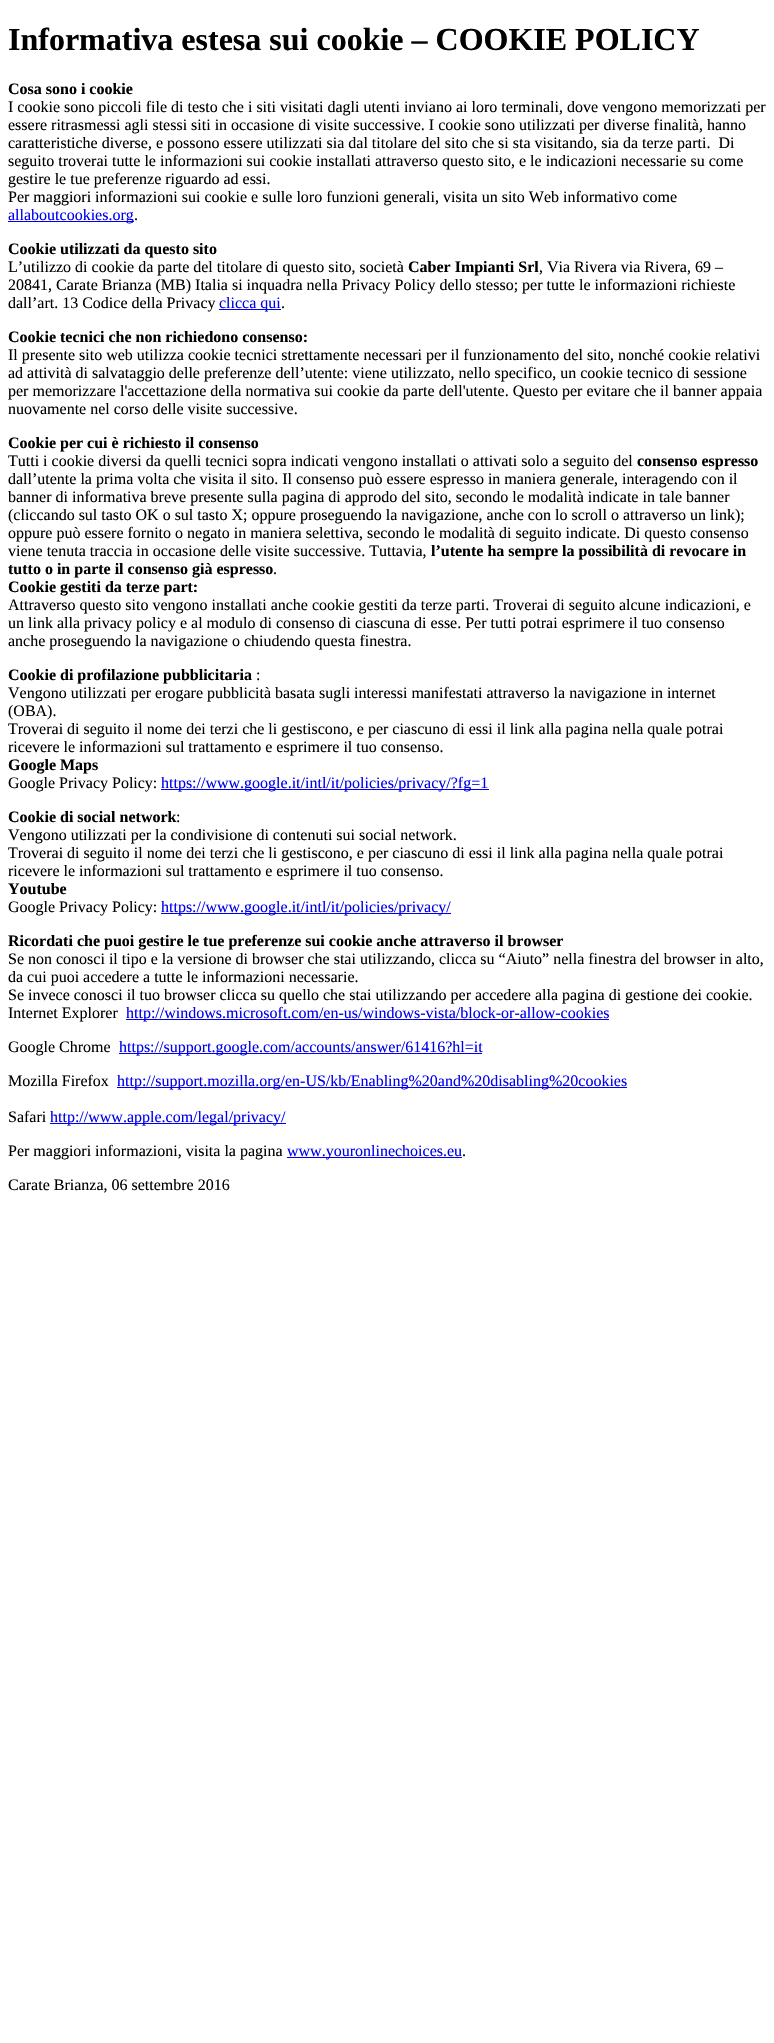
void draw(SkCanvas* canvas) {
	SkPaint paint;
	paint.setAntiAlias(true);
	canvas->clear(0xffffffff);
	SkFont f1(fontMgr->matchFamilyStyle("Liberation Serif", SkFontStyle::Bold()), 32);
	f1.setSubpixel(true);
	paint.setColor(0xff000000);
	canvas->drawString("Informativa estesa sui cookie – COOKIE POLICY", 8, 50, f1, paint);
	SkFont f2(fontMgr->matchFamilyStyle("Liberation Serif", SkFontStyle::Bold()), 16);
	f2.setSubpixel(true);
	canvas->drawString("Cosa sono i cookie", 8, 94, f2, paint);
	SkFont f3(fontMgr->matchFamilyStyle("Liberation Serif", SkFontStyle::Normal()), 16);
	f3.setSubpixel(true);
	canvas->drawString("I cookie sono piccoli file di testo che i siti visitati dagli utenti inviano ai loro terminali, dove vengono memorizzati per", 8, 112, f3, paint);
	canvas->drawString("essere ritrasmessi agli stessi siti in occasione di visite successive. I cookie sono utilizzati per diverse finalità, hanno", 8, 130, f3, paint);
	canvas->drawString("caratteristiche diverse, e possono essere utilizzati sia dal titolare del sito che si sta visitando, sia da terze parti.  Di", 8, 148, f3, paint);
	canvas->drawString("seguito troverai tutte le informazioni sui cookie installati attraverso questo sito, e le indicazioni necessarie su come", 8, 166, f3, paint);
	canvas->drawString("gestire le tue preferenze riguardo ad essi.", 8, 184, f3, paint);
	canvas->drawString("Per maggiori informazioni sui cookie e sulle loro funzioni generali, visita un sito Web informativo come", 8, 202, f3, paint);
	paint.setColor(0xff0000ee);
	canvas->drawRect(SkRect::MakeXYWH(8, 221, 126, 1), paint);
	canvas->drawString("allaboutcookies.org", 8, 220, f3, paint);
	paint.setColor(0xff000000);
	canvas->drawString(".", 134, 220, f3, paint);
	canvas->drawString("Cookie utilizzati da questo sito", 8, 254, f2, paint);
	canvas->drawString("L’utilizzo di cookie da parte del titolare di questo sito, società", 8, 272, f3, paint);
	canvas->drawString("Caber Impianti Srl", 408, 272, f2, paint);
	canvas->drawString(", Via Rivera via Rivera, 69 –", 539, 272, f3, paint);
	canvas->drawString("20841, Carate Brianza (MB) Italia si inquadra nella Privacy Policy dello stesso; per tutte le informazioni richieste", 8, 290, f3, paint);
	canvas->drawString("dall’art. 13 Codice della Privacy", 8, 308, f3, paint);
	paint.setColor(0xff0000ee);
	canvas->drawRect(SkRect::MakeXYWH(219, 309, 62, 1), paint);
	canvas->drawString("clicca qui", 219, 308, f3, paint);
	paint.setColor(0xff000000);
	canvas->drawString(".", 281, 308, f3, paint);
	canvas->drawString("Cookie tecnici che non richiedono consenso:", 8, 342, f2, paint);
	canvas->drawString("Il presente sito web utilizza cookie tecnici strettamente necessari per il funzionamento del sito, nonché cookie relativi", 8, 360, f3, paint);
	canvas->drawString("ad attività di salvataggio delle preferenze dell’utente: viene utilizzato, nello specifico, un cookie tecnico di sessione", 8, 378, f3, paint);
	canvas->drawString("per memorizzare l'accettazione della normativa sui cookie da parte dell'utente. Questo per evitare che il banner appaia", 8, 396, f3, paint);
	canvas->drawString("nuovamente nel corso delle visite successive.", 8, 414, f3, paint);
	canvas->drawString("Cookie per cui è richiesto il consenso", 8, 448, f2, paint);
	canvas->drawString("Tutti i cookie diversi da quelli tecnici sopra indicati vengono installati o attivati solo a seguito del", 8, 466, f3, paint);
	canvas->drawString("consenso espresso", 637, 466, f2, paint);
	canvas->drawString("dall’utente la prima volta che visita il sito. Il consenso può essere espresso in maniera generale, interagendo con il", 8, 484, f3, paint);
	canvas->drawString("banner di informativa breve presente sulla pagina di approdo del sito, secondo le modalità indicate in tale banner", 8, 502, f3, paint);
	canvas->drawString("(cliccando sul tasto OK o sul tasto X; oppure proseguendo la navigazione, anche con lo scroll o attraverso un link);", 8, 520, f3, paint);
	canvas->drawString("oppure può essere fornito o negato in maniera selettiva, secondo le modalità di seguito indicate. Di questo consenso", 8, 538, f3, paint);
	canvas->drawString("viene tenuta traccia in occasione delle visite successive. Tuttavia,", 8, 556, f3, paint);
	canvas->drawString("l’utente ha sempre la possibilità di revocare in", 431, 556, f2, paint);
	canvas->drawString("tutto o in parte il consenso già espresso", 8, 574, f2, paint);
	canvas->drawString(".", 273, 574, f3, paint);
	canvas->drawString("Cookie gestiti da terze part:", 8, 592, f2, paint);
	canvas->drawString("Attraverso questo sito vengono installati anche cookie gestiti da terze parti. Troverai di seguito alcune indicazioni, e", 8, 610, f3, paint);
	canvas->drawString("un link alla privacy policy e al modulo di consenso di ciascuna di esse. Per tutti potrai esprimere il tuo consenso", 8, 628, f3, paint);
	canvas->drawString("anche proseguendo la navigazione o chiudendo questa finestra.", 8, 646, f3, paint);
	canvas->drawString("Cookie di profilazione pubblicitaria", 8, 680, f2, paint);
	canvas->drawString(":", 256, 680, f3, paint);
	canvas->drawString("Vengono utilizzati per erogare pubblicità basata sugli interessi manifestati attraverso la navigazione in internet", 8, 698, f3, paint);
	canvas->drawString("(OBA).", 8, 716, f3, paint);
	canvas->drawString("Troverai di seguito il nome dei terzi che li gestiscono, e per ciascuno di essi il link alla pagina nella quale potrai", 8, 734, f3, paint);
	canvas->drawString("ricevere le informazioni sul trattamento e esprimere il tuo consenso.", 8, 752, f3, paint);
	canvas->drawString("Google Maps", 8, 770, f2, paint);
	canvas->drawString("Google Privacy Policy:", 8, 788, f3, paint);
	paint.setColor(0xff0000ee);
	canvas->drawRect(SkRect::MakeXYWH(161, 789, 328, 1), paint);
	canvas->drawString("https://www.google.it/intl/it/policies/privacy/?fg=1", 161, 788, f3, paint);
	paint.setColor(0xff000000);
	canvas->drawString("Cookie di social network", 8, 822, f2, paint);
	canvas->drawString(":", 176, 822, f3, paint);
	canvas->drawString("Vengono utilizzati per la condivisione di contenuti sui social network.", 8, 840, f3, paint);
	canvas->drawString("Troverai di seguito il nome dei terzi che li gestiscono, e per ciascuno di essi il link alla pagina nella quale potrai", 8, 858, f3, paint);
	canvas->drawString("ricevere le informazioni sul trattamento e esprimere il tuo consenso.", 8, 876, f3, paint);
	canvas->drawString("Youtube", 8, 894, f2, paint);
	canvas->drawString("Google Privacy Policy:", 8, 912, f3, paint);
	paint.setColor(0xff0000ee);
	canvas->drawRect(SkRect::MakeXYWH(161, 913, 290, 1), paint);
	canvas->drawString("https://www.google.it/intl/it/policies/privacy/", 161, 912, f3, paint);
	paint.setColor(0xff000000);
	canvas->drawString("Ricordati che puoi gestire le tue preferenze sui cookie anche attraverso il browser", 8, 946, f2, paint);
	canvas->drawString("Se non conosci il tipo e la versione di browser che stai utilizzando, clicca su “Aiuto” nella finestra del browser in alto,", 8, 964, f3, paint);
	canvas->drawString("da cui puoi accedere a tutte le informazioni necessarie.", 8, 982, f3, paint);
	canvas->drawString("Se invece conosci il tuo browser clicca su quello che stai utilizzando per accedere alla pagina di gestione dei cookie.", 8, 1000, f3, paint);
	canvas->drawString("Internet Explorer", 8, 1018, f3, paint);
	paint.setColor(0xff0000ee);
	canvas->drawRect(SkRect::MakeXYWH(126, 1019, 483, 1), paint);
	canvas->drawString("http://windows.microsoft.com/en-us/windows-vista/block-or-allow-cookies", 126, 1018, f3, paint);
	paint.setColor(0xff000000);
	canvas->drawString("Google Chrome", 8, 1052, f3, paint);
	paint.setColor(0xff0000ee);
	canvas->drawRect(SkRect::MakeXYWH(119, 1053, 363, 1), paint);
	canvas->drawString("https://support.google.com/accounts/answer/61416?hl=it", 119, 1052, f3, paint);
	paint.setColor(0xff000000);
	canvas->drawString("Mozilla Firefox", 8, 1086, f3, paint);
	paint.setColor(0xff0000ee);
	canvas->drawRect(SkRect::MakeXYWH(117, 1087, 510, 1), paint);
	canvas->drawString("http://support.mozilla.org/en-US/kb/Enabling%20and%20disabling%20cookies", 117, 1086, f3, paint);
	paint.setColor(0xff000000);
	canvas->drawString("Safari", 8, 1122, f3, paint);
	paint.setColor(0xff0000ee);
	canvas->drawRect(SkRect::MakeXYWH(50, 1123, 236, 1), paint);
	canvas->drawString("http://www.apple.com/legal/privacy/", 50, 1122, f3, paint);
	paint.setColor(0xff000000);
	canvas->drawString("Per maggiori informazioni, visita la pagina", 8, 1156, f3, paint);
	paint.setColor(0xff0000ee);
	canvas->drawRect(SkRect::MakeXYWH(287, 1157, 175, 1), paint);
	canvas->drawString("www.youronlinechoices.eu", 287, 1156, f3, paint);
	paint.setColor(0xff000000);
	canvas->drawString(".", 462, 1156, f3, paint);
	canvas->drawString("Carate Brianza, 06 settembre 2016", 8, 1190, f3, paint);
}
